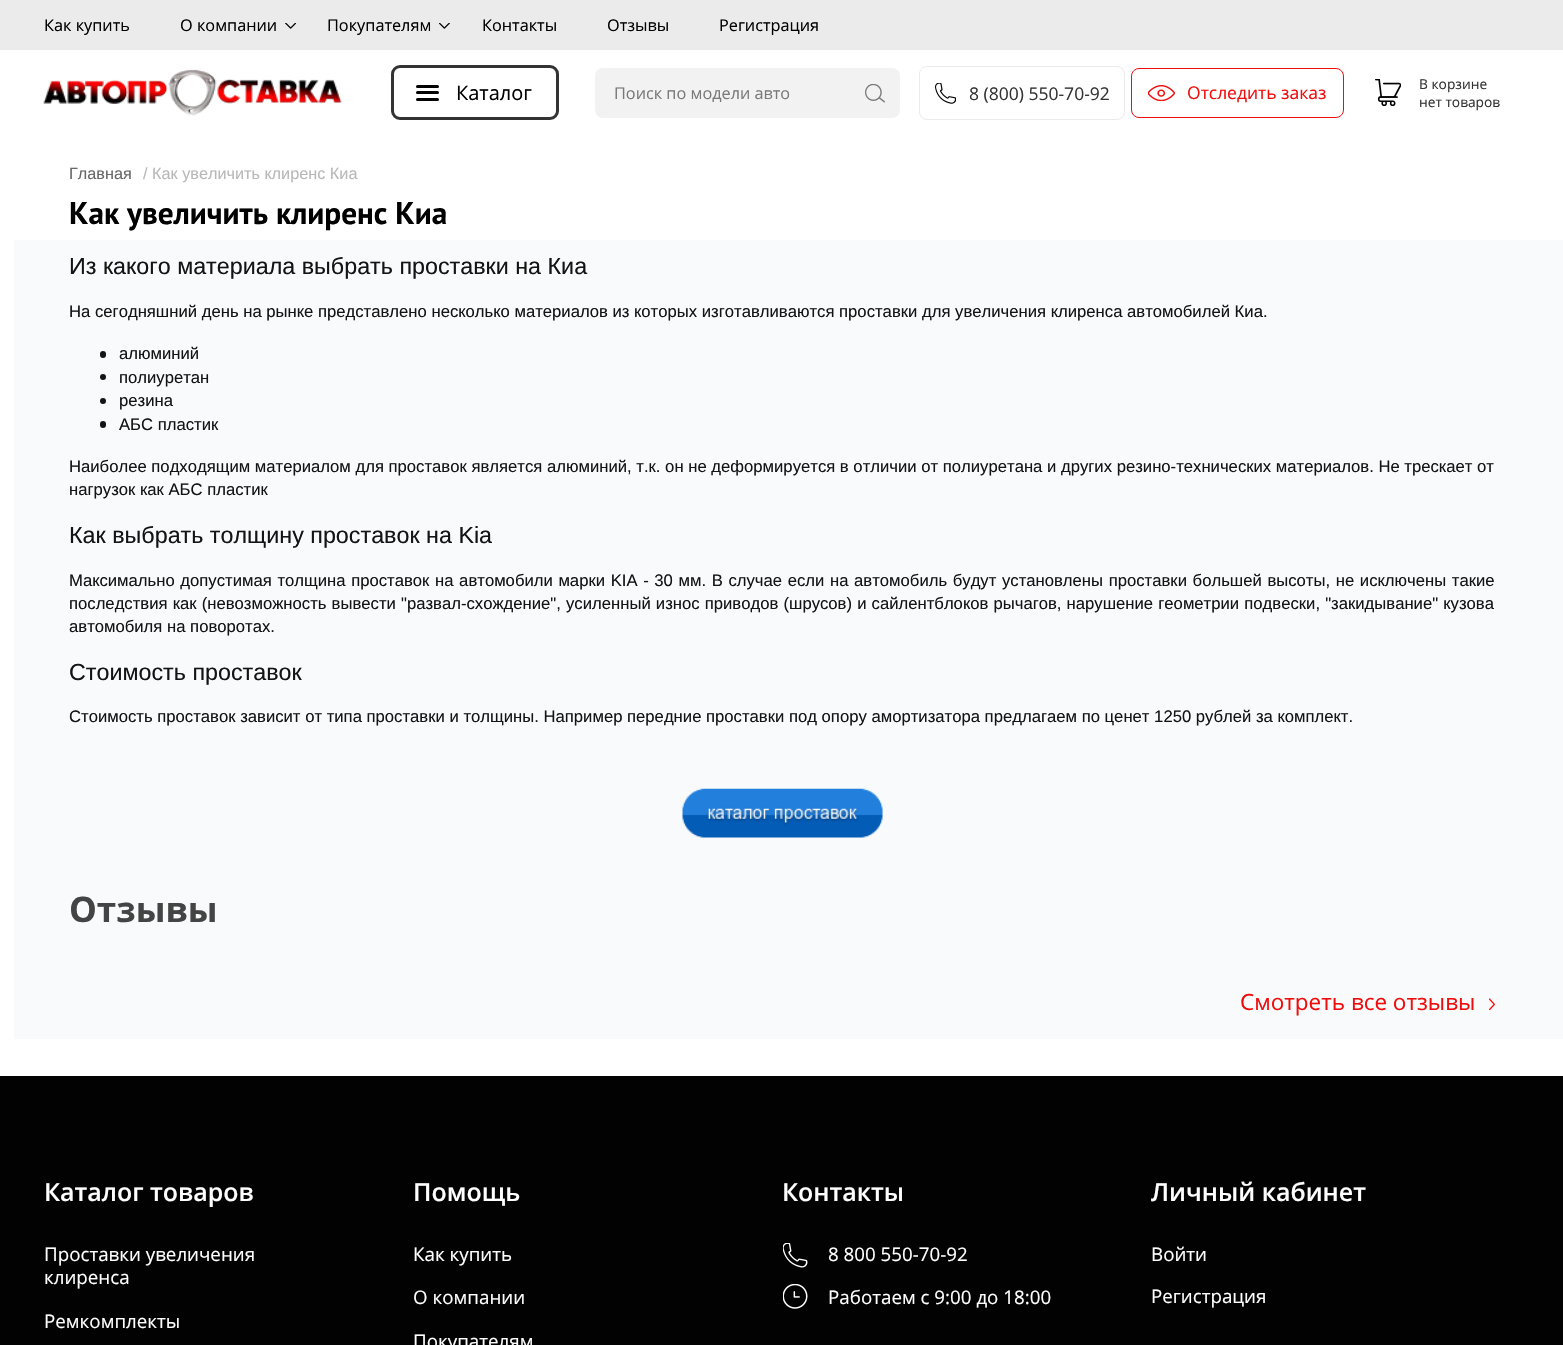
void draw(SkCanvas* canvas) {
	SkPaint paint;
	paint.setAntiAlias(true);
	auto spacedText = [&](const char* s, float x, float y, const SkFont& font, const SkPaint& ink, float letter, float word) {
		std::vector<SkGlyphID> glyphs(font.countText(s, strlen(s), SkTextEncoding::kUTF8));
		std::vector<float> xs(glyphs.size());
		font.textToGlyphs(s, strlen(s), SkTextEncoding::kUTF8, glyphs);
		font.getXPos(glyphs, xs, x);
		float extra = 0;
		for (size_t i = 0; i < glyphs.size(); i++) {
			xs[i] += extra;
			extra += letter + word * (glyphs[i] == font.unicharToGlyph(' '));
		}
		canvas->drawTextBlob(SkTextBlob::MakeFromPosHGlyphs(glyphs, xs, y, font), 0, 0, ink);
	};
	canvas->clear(0xffffffff);
	paint.setColor(0xffebebeb);
	canvas->drawRect(SkRect::MakeXYWH(0, 0, 1563, 50), paint);
	SkFont f1(fontMgr->matchFamilyStyle("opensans", SkFontStyle::Normal()), 16.25);
	f1.setSubpixel(true);
	paint.setColor(0xff000000);
	canvas->drawString("Как купить", 44, 31, f1, paint);
	canvas->drawString("О компании", 180, 31, f1, paint);
	canvas->drawImageRect(SkImages::DeferredFromEncodedData(SkData::MakeFromFileName("img1.png")), SkRect::MakeXYWH(285, 23, 11, 6), SkSamplingOptions());
	canvas->drawString("Покупателям", 327, 31, f1, paint);
	canvas->drawImageRect(SkImages::DeferredFromEncodedData(SkData::MakeFromFileName("img2.png")), SkRect::MakeXYWH(439, 23, 11, 6), SkSamplingOptions());
	canvas->drawString("Контакты", 482, 31, f1, paint);
	canvas->drawString("Отзывы", 607, 31, f1, paint);
	canvas->drawString("Регистрация", 719, 31, f1, paint);
	canvas->drawImageRect(SkImages::DeferredFromEncodedData(SkData::MakeFromFileName("img3.png")), SkRect::MakeXYWH(43, 69, 299, 47), SkSamplingOptions());
	paint.setStroke(true);
	paint.setStrokeWidth(3);
	paint.setColor(0xff333333);
	canvas->drawRoundRect(SkRect::MakeXYWH(392.5, 66.5, 165, 52), 7.5, 7.5, paint);
	paint.setStroke(false);
	paint.setColor(0xff000000);
	canvas->drawRoundRect(SkRect::MakeXYWH(416, 91, 23, 3), 1.5, 1.5, paint);
	canvas->drawRoundRect(SkRect::MakeXYWH(416, 85, 23, 3), 1.5, 1.5, paint);
	canvas->drawRoundRect(SkRect::MakeXYWH(416, 98, 23, 3), 1.5, 1.5, paint);
	SkFont f2(fontMgr->matchFamilyStyle("opensans", SkFontStyle::Normal()), 20);
	f2.setSubpixel(true);
	canvas->drawString("Каталог", 456, 100, f2, paint);
	paint.setColor(0xfff2f2f2);
	canvas->drawRoundRect(SkRect::MakeXYWH(595, 68, 305, 50), 8, 8, paint);
	paint.setColor(0xff797979);
	canvas->drawString("Поиск по модели авто", 614, 99, f1, paint);
	canvas->drawImageRect(SkImages::DeferredFromEncodedData(SkData::MakeFromFileName("img4.png")), SkRect::MakeXYWH(865, 84, 20, 19), SkSamplingOptions());
	paint.setStroke(true);
	paint.setStrokeWidth(1);
	paint.setColor(0xffebebeb);
	canvas->drawRoundRect(SkRect::MakeXYWH(919.5, 66.5, 205, 53), 7.5, 7.5, paint);
	canvas->drawImageRect(SkImages::DeferredFromEncodedData(SkData::MakeFromFileName("img5.png")), SkRect::MakeXYWH(935, 83, 21, 21), SkSamplingOptions());
	SkFont f3(fontMgr->matchFamilyStyle("opensans", SkFontStyle::Normal()), 17.5);
	f3.setSubpixel(true);
	paint.setStroke(false);
	paint.setColor(0xff333333);
	canvas->drawString("8 (800) 550-70-92", 969, 100, f3, paint);
	paint.setStroke(true);
	paint.setColor(0xfff10c0c);
	canvas->drawRoundRect(SkRect::MakeXYWH(1131.5, 68.5, 212, 49), 7.5, 7.5, paint);
	canvas->drawImageRect(SkImages::DeferredFromEncodedData(SkData::MakeFromFileName("img6.png")), SkRect::MakeXYWH(1148, 85, 27, 16), SkSamplingOptions());
	paint.setStroke(false);
	canvas->drawString("Отследить заказ", 1187, 99, f3, paint);
	canvas->drawImageRect(SkImages::DeferredFromEncodedData(SkData::MakeFromFileName("img7.png")), SkRect::MakeXYWH(1375, 79, 26, 27), SkSamplingOptions());
	SkFont f4(fontMgr->matchFamilyStyle("opensans", SkFontStyle::Normal()), 13.75);
	f4.setSubpixel(true);
	paint.setColor(0xff333333);
	canvas->drawString("В корзине", 1419, 89, f4, paint);
	canvas->drawString("нет товаров", 1419, 107, f4, paint);
	SkFont f5(fontMgr->matchFamilyStyle("Liberation Sans", SkFontStyle::Normal()), 16.25);
	f5.setSubpixel(true);
	paint.setColor(0xff676767);
	canvas->drawString("Главная", 69, 179, f5, paint);
	paint.setColor(0xffb8b8b8);
	canvas->drawString("/ Как увеличить клиренс Киа", 143, 179, f5, paint);
	SkFont f6(fontMgr->matchFamilyStyle("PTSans", SkFontStyle::Bold()), 31.25);
	f6.setSubpixel(true);
	paint.setColor(0xff000000);
	canvas->drawString("Как увеличить клиренс Киа", 69, 224, f6, paint);
	paint.setColor(0xfff8fafb);
	canvas->drawRect(SkRect::MakeXYWH(14, 240, 1549, 799), paint);
	SkFont f7(fontMgr->matchFamilyStyle("Liberation Sans", SkFontStyle::Normal()), 23.3);
	f7.setSubpixel(true);
	paint.setColor(0xff141414);
	canvas->drawString("Из какого материала выбрать проставки на Киа", 69, 274, f7, paint);
	SkFont f8(fontMgr->matchFamilyStyle("Liberation Sans", SkFontStyle::Normal()), 16.67);
	f8.setSubpixel(true);
	canvas->drawString("На сегодняшний день на рынке представлено несколько материалов из которых изготавливаются проставки для увеличения клиренса автомобилей Киа.", 69, 317, f8, paint);
	canvas->drawRoundRect(SkRect::MakeXYWH(100, 351, 6, 7), 3, 3, paint);
	canvas->drawString("алюминий", 119, 359, f8, paint);
	canvas->drawCircle(103, 377, 3, paint);
	canvas->drawString("полиуретан", 119, 383, f8, paint);
	canvas->drawCircle(103, 401, 3, paint);
	canvas->drawString("резина", 119, 406, f8, paint);
	canvas->drawRoundRect(SkRect::MakeXYWH(100, 421, 6, 7), 3, 3, paint);
	canvas->drawString("АБС пластик", 119, 430, f8, paint);
	canvas->drawString("Наиболее подходящим материалом для проставок является алюминий, т.к. он не деформируется в отличии от полиуретана и других резино-технических материалов. Не трескает от", 69, 472, f8, paint);
	canvas->drawString("нагрузок как АБС пластик", 69, 495, f8, paint);
	canvas->drawString("Как выбрать толщину проставок на Kia", 69, 543, f7, paint);
	spacedText("Максимально допустимая толщина проставок на автомобили марки KIA - 30 мм. В случае если на автомобиль будут установлены проставки большей высоты, не исключены такие", 69, 586, f8, paint, 0, 1);
	spacedText("последствия как (невозможность вывести \"развал-схождение\", усиленный износ приводов (шрусов) и сайлентблоков рычагов, нарушение геометрии подвески, \"закидывание\" кузова", 69, 609, f8, paint, 0, 0.5);
	canvas->drawString("автомобиля на поворотах.", 69, 632, f8, paint);
	canvas->drawString("Стоимость проставок", 69, 680, f7, paint);
	canvas->drawString("Стоимость проставок зависит от типа проставки и толщины. Например передние проставки под опору амортизатора предлагаем по ценет 1250 рублей за комплект.", 69, 722, f8, paint);
	canvas->drawImageRect(SkImages::DeferredFromEncodedData(SkData::MakeFromFileName("img8.png")), SkRect::MakeXYWH(682, 788, 201, 50), SkSamplingOptions());
	SkFont f9(fontMgr->matchFamilyStyle("opensans", SkFontStyle::Bold()), 35);
	f9.setSubpixel(true);
	paint.setColor(0xff444444);
	canvas->drawString("Отзывы", 69, 922, f9, paint);
	SkFont f10(fontMgr->matchFamilyStyle("opensans", SkFontStyle::Normal()), 22.5);
	f10.setSubpixel(true);
	paint.setColor(0xfff10c0c);
	canvas->drawString("Смотреть все отзывы", 1240, 1010, f10, paint);
	canvas->drawImageRect(SkImages::DeferredFromEncodedData(SkData::MakeFromFileName("img9.png")), SkRect::MakeXYWH(1489, 998, 6, 12), SkSamplingOptions());
	paint.setColor(0xff020202);
	canvas->drawRect(SkRect::MakeXYWH(0, 1076, 1563, 269), paint);
	SkFont f11(fontMgr->matchFamilyStyle("Open Sans", SkFontStyle(600, SkFontStyle::kNormal_Width, SkFontStyle::kUpright_Slant)), 25);
	f11.setSubpixel(true);
	paint.setColor(0xffffffff);
	canvas->drawString("Каталог товаров", 44, 1201, f11, paint);
	SkFont f12(fontMgr->matchFamilyStyle("opensans", SkFontStyle::Normal()), 18.75);
	f12.setSubpixel(true);
	canvas->drawString("Проставки увеличения", 44, 1261, f12, paint);
	canvas->drawString("клиренса", 44, 1284, f12, paint);
	canvas->drawString("Ремкомплекты", 44, 1328, f12, paint);
	canvas->drawString("Помощь", 413, 1201, f11, paint);
	canvas->drawString("Как купить", 413, 1261, f12, paint);
	canvas->drawString("О компании", 413, 1304, f12, paint);
	canvas->drawString("Покупателям", 413, 1348, f12, paint);
	canvas->drawString("Контакты", 782, 1201, f11, paint);
	canvas->drawImageRect(SkImages::DeferredFromEncodedData(SkData::MakeFromFileName("img10.png")), SkRect::MakeXYWH(783, 1243, 25, 25), SkSamplingOptions());
	canvas->drawString("8 800 550-70-92", 828, 1261, f12, paint);
	canvas->drawImageRect(SkImages::DeferredFromEncodedData(SkData::MakeFromFileName("img11.png")), SkRect::MakeXYWH(783, 1284, 25, 25), SkSamplingOptions());
	canvas->drawString("Работаем с 9:00 до 18:00", 828, 1304, f12, paint);
	canvas->drawString("Личный кабинет", 1151, 1201, f11, paint);
	canvas->drawString("Войти", 1151, 1261, f12, paint);
	canvas->drawString("Регистрация", 1151, 1303, f12, paint);
}
